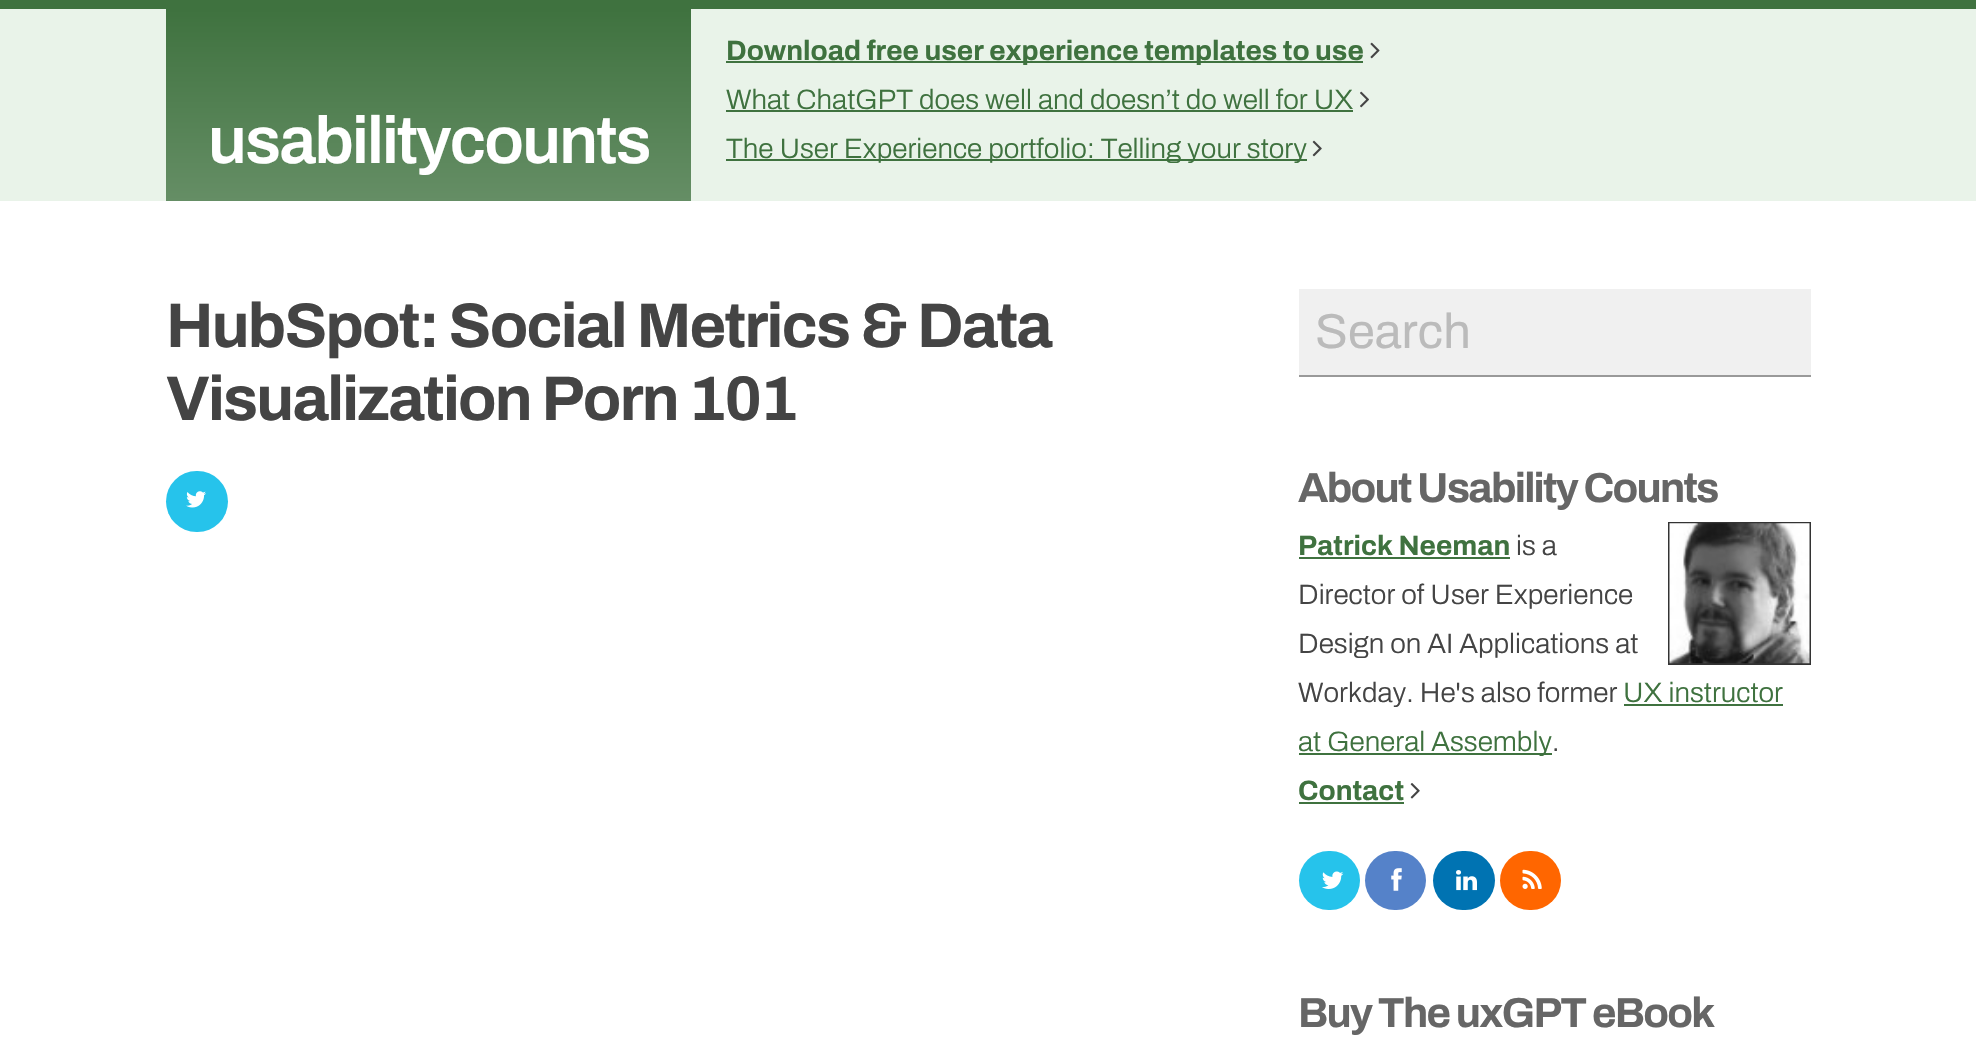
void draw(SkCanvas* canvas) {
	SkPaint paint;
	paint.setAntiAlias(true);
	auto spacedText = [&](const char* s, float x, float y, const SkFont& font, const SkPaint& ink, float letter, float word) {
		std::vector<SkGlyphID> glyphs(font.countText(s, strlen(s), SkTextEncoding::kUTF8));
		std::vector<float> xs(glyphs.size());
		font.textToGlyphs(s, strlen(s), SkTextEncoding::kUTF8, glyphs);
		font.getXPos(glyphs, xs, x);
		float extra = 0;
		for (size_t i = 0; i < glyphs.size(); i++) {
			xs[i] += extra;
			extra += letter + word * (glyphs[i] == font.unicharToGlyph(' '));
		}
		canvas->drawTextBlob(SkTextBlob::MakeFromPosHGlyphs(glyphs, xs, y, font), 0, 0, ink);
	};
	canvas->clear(0xffffffff);
	paint.setColor(0xffe9f3e9);
	canvas->drawRect(SkRect::MakeXYWH(0, 9, 1976, 192), paint);
	paint.setColor(0xff3f723f);
	canvas->drawRect(SkRect::MakeXYWH(0, 0, 1976, 9), paint);
	{
		const SkColor colors[] = {0xff3f723f, 0xff658e65};
		const float stops[] = {0, 1};
		const SkPoint ends[] = {{429, 9}, {429, 201}};
		paint.setShader(SkGradientShader::MakeLinear(ends, colors, stops, 2, SkTileMode::kClamp));
		paint.setAlpha(255);
	}
	canvas->drawRect(SkRect::MakeXYWH(166, 9, 525, 192), paint);
	SkFont f1(fontMgr->matchFamilyStyle("Archivo", SkFontStyle(600, SkFontStyle::kNormal_Width, SkFontStyle::kUpright_Slant)), 66.5);
	f1.setSubpixel(true);
	paint.setShader(nullptr);
	paint.setColor(0xffffffff);
	spacedText("usabilitycounts", 208, 163, f1, paint, -1.75, 0);
	paint.setColor(0xff3f723f);
	canvas->drawRect(SkRect::MakeXYWH(726, 61, 637, 2), paint);
	SkFont f2(fontMgr->matchFamilyStyle("Archivo", SkFontStyle::Bold()), 28);
	f2.setSubpixel(true);
	canvas->drawString("Download free user experience templates to use", 726, 60, f2, paint);
	canvas->drawImageRect(SkImages::DeferredFromEncodedData(SkData::MakeFromFileName("img1.png")), SkRect::MakeXYWH(1370, 42, 10, 17), SkSamplingOptions());
	SkFont f3(fontMgr->matchFamilyStyle("Archivo", SkFontStyle(300, SkFontStyle::kNormal_Width, SkFontStyle::kUpright_Slant)), 28);
	f3.setSubpixel(true);
	canvas->drawString("What ChatGPT does well and doesn’t do well for UX", 726, 109, f3, paint);
	canvas->drawRect(SkRect::MakeXYWH(726, 110, 627, 2), paint);
	canvas->drawImageRect(SkImages::DeferredFromEncodedData(SkData::MakeFromFileName("img2.png")), SkRect::MakeXYWH(1360, 91, 9, 17), SkSamplingOptions());
	canvas->drawRect(SkRect::MakeXYWH(726, 159, 581, 2), paint);
	canvas->drawString("The User Experience portfolio: Telling your story", 726, 158, f3, paint);
	canvas->drawImageRect(SkImages::DeferredFromEncodedData(SkData::MakeFromFileName("img3.png")), SkRect::MakeXYWH(1312, 140, 10, 17), SkSamplingOptions());
	SkFont f4(fontMgr->matchFamilyStyle("Archivo", SkFontStyle::Bold()), 63);
	f4.setSubpixel(true);
	paint.setColor(0xff444444);
	spacedText("HubSpot: Social Metrics & Data", 166, 347, f4, paint, -1.75, 0);
	spacedText("Visualization Porn 101", 166, 420, f4, paint, -1.75, 0);
	paint.setColor(0xff26c3eb);
	canvas->drawRoundRect(SkRect::MakeXYWH(166, 471, 62, 61), 30.5, 30.5, paint);
	canvas->drawImageRect(SkImages::DeferredFromEncodedData(SkData::MakeFromFileName("img4.png")), SkRect::MakeXYWH(186, 491, 20, 17), SkSamplingOptions());
	paint.setColor(0xfff0f0f0);
	canvas->drawRect(SkRect::MakeXYWH(1299, 289, 512, 86), paint);
	paint.setColor(0xff999999);
	canvas->drawRect(SkRect::MakeXYWH(1299, 375, 512, 2), paint);
	SkFont f5(fontMgr->matchFamilyStyle("Archivo", SkFontStyle::Normal()), 49);
	f5.setSubpixel(true);
	paint.setColor(0xffbbbbbb);
	canvas->drawString("Search", 1315, 348, f5, paint);
	SkFont f6(fontMgr->matchFamilyStyle("Archivo", SkFontStyle::Bold()), 42);
	f6.setSubpixel(true);
	paint.setColor(0xff666666);
	spacedText("About Usability Counts", 1298, 502, f6, paint, -1.75, 0);
	paint.setColor(0xff3f723f);
	canvas->drawString("Patrick Neeman", 1298, 555, f2, paint);
	canvas->drawRect(SkRect::MakeXYWH(1299, 557, 211, 2), paint);
	paint.setColor(0xff444444);
	canvas->drawString("is a", 1516, 555, f3, paint);
	paint.setStroke(true);
	paint.setStrokeWidth(2);
	paint.setColor(0xff333333);
	canvas->drawRect(SkRect::MakeXYWH(1669, 523, 141, 141), paint);
	canvas->drawImageRect(SkImages::DeferredFromEncodedData(SkData::MakeFromFileName("img5.png")), SkRect::MakeXYWH(1669, 523, 141, 141), SkSamplingOptions());
	paint.setStroke(false);
	paint.setColor(0xff444444);
	canvas->drawString("Director of User Experience", 1298, 604, f3, paint);
	canvas->drawString("Design on AI Applications at", 1298, 653, f3, paint);
	canvas->drawString("Workday. He's also former", 1298, 702, f3, paint);
	paint.setColor(0xff3f723f);
	canvas->drawString("UX instructor", 1623, 702, f3, paint);
	canvas->drawRect(SkRect::MakeXYWH(1624, 704, 159, 2), paint);
	canvas->drawRect(SkRect::MakeXYWH(1299, 753, 253, 2), paint);
	canvas->drawString("at General Assembly", 1298, 751, f3, paint);
	paint.setColor(0xff444444);
	canvas->drawString(".", 1552, 751, f3, paint);
	paint.setColor(0xff3f723f);
	canvas->drawString("Contact", 1298, 800, f2, paint);
	canvas->drawRect(SkRect::MakeXYWH(1299, 802, 105, 2), paint);
	canvas->drawImageRect(SkImages::DeferredFromEncodedData(SkData::MakeFromFileName("img6.png")), SkRect::MakeXYWH(1410, 783, 10, 16), SkSamplingOptions());
	paint.setColor(0xff26c3eb);
	canvas->drawRoundRect(SkRect::MakeXYWH(1299, 851, 61, 59), 29.5, 29.5, paint);
	canvas->drawImageRect(SkImages::DeferredFromEncodedData(SkData::MakeFromFileName("img7.png")), SkRect::MakeXYWH(1322, 871, 22, 18), SkSamplingOptions());
	paint.setColor(0xff5582c9);
	canvas->drawRoundRect(SkRect::MakeXYWH(1365, 851, 61, 59), 29.5, 29.5, paint);
	canvas->drawImageRect(SkImages::DeferredFromEncodedData(SkData::MakeFromFileName("img8.png")), SkRect::MakeXYWH(1391, 868, 11, 23), SkSamplingOptions());
	paint.setColor(0xff0073b2);
	canvas->drawRoundRect(SkRect::MakeXYWH(1433, 851, 62, 59), 29.5, 29.5, paint);
	canvas->drawImageRect(SkImages::DeferredFromEncodedData(SkData::MakeFromFileName("img9.png")), SkRect::MakeXYWH(1456, 870, 21, 21), SkSamplingOptions());
	paint.setColor(0xffff6600);
	canvas->drawRoundRect(SkRect::MakeXYWH(1500, 851, 61, 59), 29.5, 29.5, paint);
	canvas->drawImageRect(SkImages::DeferredFromEncodedData(SkData::MakeFromFileName("img10.png")), SkRect::MakeXYWH(1522, 869, 20, 20), SkSamplingOptions());
	paint.setColor(0xff666666);
	spacedText("Buy The uxGPT eBook", 1298, 1027, f6, paint, -1.75, 0);
}
